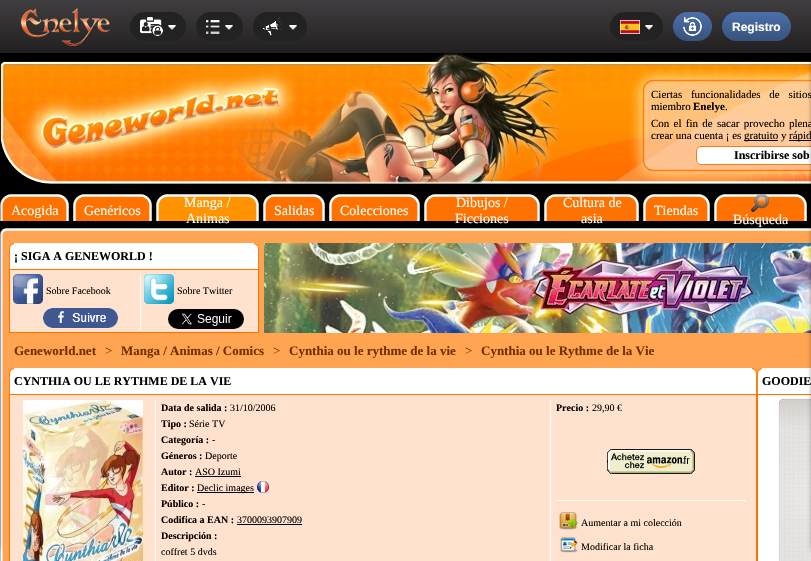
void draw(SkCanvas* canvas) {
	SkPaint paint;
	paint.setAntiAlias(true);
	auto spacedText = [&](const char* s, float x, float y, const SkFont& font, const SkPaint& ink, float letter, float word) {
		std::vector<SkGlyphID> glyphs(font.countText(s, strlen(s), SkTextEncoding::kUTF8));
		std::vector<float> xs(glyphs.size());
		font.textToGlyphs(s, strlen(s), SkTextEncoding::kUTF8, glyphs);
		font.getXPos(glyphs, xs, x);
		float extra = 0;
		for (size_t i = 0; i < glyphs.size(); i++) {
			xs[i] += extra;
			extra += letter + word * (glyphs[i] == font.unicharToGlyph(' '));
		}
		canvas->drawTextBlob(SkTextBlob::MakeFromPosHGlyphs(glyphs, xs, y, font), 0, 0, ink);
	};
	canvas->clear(0xff000000);
	canvas->drawImageRect(SkImages::DeferredFromEncodedData(SkData::MakeFromFileName("img8.png")), SkRect::MakeXYWH(0, 53, 811, 131), SkSamplingOptions());
	canvas->drawImageRect(SkImages::DeferredFromEncodedData(SkData::MakeFromFileName("img11.png")), SkRect::MakeXYWH(0, 194, 11, 27), SkSamplingOptions());
	canvas->drawImageRect(SkImages::DeferredFromEncodedData(SkData::MakeFromFileName("img25.png")), SkRect::MakeXYWH(0, 228, 811, 6), SkSamplingOptions());
	canvas->drawImageRect(SkImages::DeferredFromEncodedData(SkData::MakeFromFileName("img26.png")), SkRect::MakeXYWH(0, 234, 811, 327), SkSamplingOptions());
	paint.setColor(0x80000000);
	paint.setMaskFilter(SkMaskFilter::MakeBlur(kNormal_SkBlurStyle, 3));
	canvas->drawRoundRect(SkRect::MakeXYWH(-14, 57, 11, 494), 5, 5, paint);
	paint.setMaskFilter(nullptr);
	paint.setMaskFilter(SkMaskFilter::MakeBlur(kNormal_SkBlurStyle, 3));
	canvas->drawRoundRect(SkRect::MakeXYWH(-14, 57, 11, 494), 5, 5, paint);
	paint.setMaskFilter(nullptr);
	canvas->drawImageRect(SkImages::DeferredFromEncodedData(SkData::MakeFromFileName("img10.png")), SkRect::MakeXYWH(629, 70, 182, 111), SkSamplingOptions());
	paint.setColor(0xff000000);
	canvas->drawRect(SkRect::MakeXYWH(789, 140, 22, 1), paint);
	paint.setColor(0xffffffff);
	canvas->drawRoundRect(SkRect::MakeXYWH(696.5, 146.5, 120, 18), 4.5, 4.5, paint);
	paint.setStroke(true);
	paint.setStrokeWidth(1);
	paint.setColor(0xffff7c12);
	canvas->drawRoundRect(SkRect::MakeXYWH(696.5, 146.5, 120, 18), 4.5, 4.5, paint);
	canvas->drawImageRect(SkImages::DeferredFromEncodedData(SkData::MakeFromFileName("img13.png")), SkRect::MakeXYWH(796, 194, 11, 27), SkSamplingOptions());
	canvas->drawImageRect(SkImages::DeferredFromEncodedData(SkData::MakeFromFileName("img33.png")), SkRect::MakeXYWH(264, 243, 547, 90), SkSamplingOptions());
	paint.setStroke(false);
	paint.setColor(0xffff7100);
	canvas->drawRect(SkRect::MakeXYWH(9, 394, 802, 1), paint);
	paint.setColor(0xffffffff);
	canvas->drawRect(SkRect::MakeXYWH(762, 368, 49, 26), paint);
	canvas->drawRect(SkRect::MakeXYWH(758, 395, 53, 166), paint);
	canvas->drawImageRect(SkImages::DeferredFromEncodedData(SkData::MakeFromFileName("img39.png")), SkRect::MakeXYWH(778, 398, 33, 163), SkSamplingOptions());
	paint.setColor(0x80000000);
	paint.setMaskFilter(SkMaskFilter::MakeBlur(kNormal_SkBlurStyle, 3));
	canvas->drawRoundRect(SkRect::MakeXYWH(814, 57, 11, 494), 5, 5, paint);
	paint.setMaskFilter(nullptr);
	paint.setMaskFilter(SkMaskFilter::MakeBlur(kNormal_SkBlurStyle, 3));
	canvas->drawRoundRect(SkRect::MakeXYWH(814, 57, 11, 494), 5, 5, paint);
	paint.setMaskFilter(nullptr);
	{
		const SkColor colors[] = {0xff403e40, 0xff221f20};
		const float stops[] = {0, 1};
		const SkPoint ends[] = {{406, 0}, {406, 53}};
		paint.setShader(SkGradientShader::MakeLinear(ends, colors, stops, 2, SkTileMode::kClamp));
		paint.setAlpha(255);
	}
	canvas->drawRect(SkRect::MakeXYWH(0, 0, 811, 53), paint);
	canvas->drawImageRect(SkImages::DeferredFromEncodedData(SkData::MakeFromFileName("img1.png")), SkRect::MakeXYWH(20, 8, 90, 38), SkSamplingOptions());
	paint.setShader(nullptr);
	paint.setColor(0xff222222);
	canvas->drawRoundRect(SkRect::MakeXYWH(130, 12, 56, 29), 14.5, 14.5, paint);
	canvas->drawImageRect(SkImages::DeferredFromEncodedData(SkData::MakeFromFileName("img2.png")), SkRect::MakeXYWH(140, 17, 23, 19), SkSamplingOptions());
	canvas->drawImageRect(SkImages::DeferredFromEncodedData(SkData::MakeFromFileName("img3.png")), SkRect::MakeXYWH(168, 24, 8, 6), SkSamplingOptions());
	canvas->drawRoundRect(SkRect::MakeXYWH(196, 12, 47, 29), 14.5, 14.5, paint);
	canvas->drawImageRect(SkImages::DeferredFromEncodedData(SkData::MakeFromFileName("img4.png")), SkRect::MakeXYWH(206, 20, 14, 14), SkSamplingOptions());
	canvas->drawImageRect(SkImages::DeferredFromEncodedData(SkData::MakeFromFileName("img3.png")), SkRect::MakeXYWH(225, 24, 8, 6), SkSamplingOptions());
	canvas->drawRoundRect(SkRect::MakeXYWH(253, 12, 54, 29), 14.5, 14.5, paint);
	canvas->drawImageRect(SkImages::DeferredFromEncodedData(SkData::MakeFromFileName("img5.png")), SkRect::MakeXYWH(263, 17, 20, 19), SkSamplingOptions());
	canvas->drawImageRect(SkImages::DeferredFromEncodedData(SkData::MakeFromFileName("img3.png")), SkRect::MakeXYWH(289, 24, 8, 6), SkSamplingOptions());
	canvas->drawRoundRect(SkRect::MakeXYWH(610, 12, 53, 29), 14.5, 14.5, paint);
	canvas->drawImageRect(SkImages::DeferredFromEncodedData(SkData::MakeFromFileName("img6.png")), SkRect::MakeXYWH(620, 20, 20, 14), SkSamplingOptions());
	canvas->drawImageRect(SkImages::DeferredFromEncodedData(SkData::MakeFromFileName("img3.png")), SkRect::MakeXYWH(645, 24, 8, 6), SkSamplingOptions());
	{
		const SkColor colors[] = {0xff4b70ac, 0xff38527b};
		const float stops[] = {0, 1};
		const SkPoint ends[] = {{693, 12}, {693, 41}};
		paint.setShader(SkGradientShader::MakeLinear(ends, colors, stops, 2, SkTileMode::kClamp));
		paint.setAlpha(255);
	}
	canvas->drawRoundRect(SkRect::MakeXYWH(673, 12, 39, 29), 14.5, 14.5, paint);
	canvas->drawImageRect(SkImages::DeferredFromEncodedData(SkData::MakeFromFileName("img7.png")), SkRect::MakeXYWH(683, 17, 19, 19), SkSamplingOptions());
	{
		const SkColor colors[] = {0xff4b70ac, 0xff38527b};
		const float stops[] = {0, 1};
		const SkPoint ends[] = {{757, 12}, {757, 41}};
		paint.setShader(SkGradientShader::MakeLinear(ends, colors, stops, 2, SkTileMode::kClamp));
		paint.setAlpha(255);
	}
	canvas->drawRoundRect(SkRect::MakeXYWH(722, 12, 69, 29), 14.5, 14.5, paint);
	SkFont f1(fontMgr->matchFamilyStyle("Liberation Sans", SkFontStyle::Bold()), 12);
	f1.setSubpixel(true);
	paint.setShader(nullptr);
	paint.setColor(0xffffffff);
	canvas->drawString("Registro", 732, 31, f1, paint);
	canvas->drawImageRect(SkImages::DeferredFromEncodedData(SkData::MakeFromFileName("img9.png")), SkRect::MakeXYWH(23, 69, 275, 98), SkSamplingOptions());
	SkFont f2(fontMgr->matchFamilyStyle("Liberation Serif", SkFontStyle::Normal()), 11);
	f2.setSubpixel(true);
	paint.setColor(0xff000000);
	spacedText("Ciertas funcionalidades de sitios", 651, 98, f2, paint, 0, 6);
	canvas->drawString("miembro", 651, 110, f2, paint);
	SkFont f3(fontMgr->matchFamilyStyle("Liberation Serif", SkFontStyle::Bold()), 11);
	f3.setSubpixel(true);
	canvas->drawString("Enelye", 693, 110, f3, paint);
	canvas->drawString(".", 725, 110, f2, paint);
	spacedText("Con el fin de sacar provecho plena", 651, 127, f2, paint, 0, 1.5);
	canvas->drawString("crear una cuenta ¡ es", 651, 139, f2, paint);
	canvas->drawRect(SkRect::MakeXYWH(744, 140, 34, 1), paint);
	canvas->drawString("gratuito y", 744, 139, f2, paint);
	canvas->drawString("rápid", 789, 139, f2, paint);
	SkFont f4(fontMgr->matchFamilyStyle("Liberation Serif", SkFontStyle::Bold()), 12);
	f4.setSubpixel(true);
	canvas->drawString("Inscribirse sob", 734, 159, f4, paint);
	canvas->drawImageRect(SkImages::DeferredFromEncodedData(SkData::MakeFromFileName("img12.png")), SkRect::MakeXYWH(11, 194, 47, 27), SkSamplingOptions());
	canvas->drawImageRect(SkImages::DeferredFromEncodedData(SkData::MakeFromFileName("img13.png")), SkRect::MakeXYWH(58, 194, 11, 27), SkSamplingOptions());
	SkFont f5(fontMgr->matchFamilyStyle("Liberation Serif", SkFontStyle::Normal()), 14);
	f5.setSubpixel(true);
	paint.setColor(0xffffffff);
	canvas->drawString("Acogida", 11, 215, f5, paint);
	canvas->drawImageRect(SkImages::DeferredFromEncodedData(SkData::MakeFromFileName("img11.png")), SkRect::MakeXYWH(73, 194, 11, 27), SkSamplingOptions());
	canvas->drawImageRect(SkImages::DeferredFromEncodedData(SkData::MakeFromFileName("img14.png")), SkRect::MakeXYWH(84, 194, 57, 27), SkSamplingOptions());
	canvas->drawString("Genéricos", 84, 215, f5, paint);
	canvas->drawImageRect(SkImages::DeferredFromEncodedData(SkData::MakeFromFileName("img13.png")), SkRect::MakeXYWH(141, 194, 11, 27), SkSamplingOptions());
	canvas->drawImageRect(SkImages::DeferredFromEncodedData(SkData::MakeFromFileName("img15.png")), SkRect::MakeXYWH(156, 194, 11, 27), SkSamplingOptions());
	canvas->drawImageRect(SkImages::DeferredFromEncodedData(SkData::MakeFromFileName("img16.png")), SkRect::MakeXYWH(167, 194, 81, 27), SkSamplingOptions());
	canvas->drawString("Manga /", 184, 207, f5, paint);
	canvas->drawString("Animas", 186, 223, f5, paint);
	canvas->drawImageRect(SkImages::DeferredFromEncodedData(SkData::MakeFromFileName("img17.png")), SkRect::MakeXYWH(248, 194, 11, 27), SkSamplingOptions());
	canvas->drawImageRect(SkImages::DeferredFromEncodedData(SkData::MakeFromFileName("img11.png")), SkRect::MakeXYWH(263, 194, 11, 27), SkSamplingOptions());
	canvas->drawImageRect(SkImages::DeferredFromEncodedData(SkData::MakeFromFileName("img18.png")), SkRect::MakeXYWH(274, 194, 40, 27), SkSamplingOptions());
	canvas->drawString("Salidas", 274, 215, f5, paint);
	canvas->drawImageRect(SkImages::DeferredFromEncodedData(SkData::MakeFromFileName("img13.png")), SkRect::MakeXYWH(314, 194, 11, 27), SkSamplingOptions());
	canvas->drawImageRect(SkImages::DeferredFromEncodedData(SkData::MakeFromFileName("img11.png")), SkRect::MakeXYWH(329, 194, 11, 27), SkSamplingOptions());
	canvas->drawImageRect(SkImages::DeferredFromEncodedData(SkData::MakeFromFileName("img19.png")), SkRect::MakeXYWH(340, 194, 69, 27), SkSamplingOptions());
	canvas->drawString("Colecciones", 340, 215, f5, paint);
	canvas->drawImageRect(SkImages::DeferredFromEncodedData(SkData::MakeFromFileName("img13.png")), SkRect::MakeXYWH(409, 194, 11, 27), SkSamplingOptions());
	canvas->drawImageRect(SkImages::DeferredFromEncodedData(SkData::MakeFromFileName("img11.png")), SkRect::MakeXYWH(424, 194, 11, 27), SkSamplingOptions());
	canvas->drawImageRect(SkImages::DeferredFromEncodedData(SkData::MakeFromFileName("img20.png")), SkRect::MakeXYWH(435, 194, 94, 27), SkSamplingOptions());
	canvas->drawString("Dibujos /", 456, 207, f5, paint);
	canvas->drawString("Ficciones", 455, 223, f5, paint);
	canvas->drawImageRect(SkImages::DeferredFromEncodedData(SkData::MakeFromFileName("img13.png")), SkRect::MakeXYWH(529, 194, 11, 27), SkSamplingOptions());
	canvas->drawImageRect(SkImages::DeferredFromEncodedData(SkData::MakeFromFileName("img11.png")), SkRect::MakeXYWH(544, 194, 11, 27), SkSamplingOptions());
	canvas->drawImageRect(SkImages::DeferredFromEncodedData(SkData::MakeFromFileName("img21.png")), SkRect::MakeXYWH(555, 194, 73, 27), SkSamplingOptions());
	canvas->drawString("Cultura de", 563, 207, f5, paint);
	canvas->drawString("asia", 581, 223, f5, paint);
	canvas->drawImageRect(SkImages::DeferredFromEncodedData(SkData::MakeFromFileName("img13.png")), SkRect::MakeXYWH(628, 194, 11, 27), SkSamplingOptions());
	canvas->drawImageRect(SkImages::DeferredFromEncodedData(SkData::MakeFromFileName("img11.png")), SkRect::MakeXYWH(643, 194, 11, 27), SkSamplingOptions());
	canvas->drawImageRect(SkImages::DeferredFromEncodedData(SkData::MakeFromFileName("img22.png")), SkRect::MakeXYWH(654, 194, 45, 27), SkSamplingOptions());
	canvas->drawString("Tiendas", 654, 215, f5, paint);
	canvas->drawImageRect(SkImages::DeferredFromEncodedData(SkData::MakeFromFileName("img13.png")), SkRect::MakeXYWH(699, 194, 11, 27), SkSamplingOptions());
	canvas->drawImageRect(SkImages::DeferredFromEncodedData(SkData::MakeFromFileName("img11.png")), SkRect::MakeXYWH(714, 194, 11, 27), SkSamplingOptions());
	canvas->drawImageRect(SkImages::DeferredFromEncodedData(SkData::MakeFromFileName("img23.png")), SkRect::MakeXYWH(725, 194, 71, 27), SkSamplingOptions());
	canvas->drawImageRect(SkImages::DeferredFromEncodedData(SkData::MakeFromFileName("img24.png")), SkRect::MakeXYWH(751, 194, 18, 18), SkSamplingOptions());
	canvas->drawString("Búsqueda", 733, 224, f5, paint);
	canvas->drawImageRect(SkImages::DeferredFromEncodedData(SkData::MakeFromFileName("img27.png")), SkRect::MakeXYWH(9, 243, 5, 26), SkSamplingOptions());
	canvas->drawRect(SkRect::MakeXYWH(14, 243, 240, 26), paint);
	paint.setColor(0xff000000);
	canvas->drawString("¡ SIGA A GENEWORLD !", 14, 260, f4, paint);
	canvas->drawImageRect(SkImages::DeferredFromEncodedData(SkData::MakeFromFileName("img28.png")), SkRect::MakeXYWH(254, 243, 5, 26), SkSamplingOptions());
	paint.setColor(0xffffe2cd);
	canvas->drawRect(SkRect::MakeXYWH(10, 270, 248, 62), paint);
	paint.setColor(0xffff7100);
	canvas->drawRect(SkRect::MakeXYWH(9, 269, 250, 1), paint);
	canvas->drawRect(SkRect::MakeXYWH(258, 269, 1, 64), paint);
	canvas->drawRect(SkRect::MakeXYWH(9, 332, 250, 1), paint);
	canvas->drawRect(SkRect::MakeXYWH(9, 269, 1, 64), paint);
	canvas->drawImageRect(SkImages::DeferredFromEncodedData(SkData::MakeFromFileName("img29.png")), SkRect::MakeXYWH(13, 274, 30, 30), SkSamplingOptions());
	SkFont f6(fontMgr->matchFamilyStyle("Liberation Serif", SkFontStyle::Normal()), 10);
	f6.setSubpixel(true);
	paint.setColor(0xff000000);
	canvas->drawString("Sobre Facebook", 46, 294, f6, paint);
	canvas->drawImageRect(SkImages::DeferredFromEncodedData(SkData::MakeFromFileName("img30.png")), SkRect::MakeXYWH(43, 308, 75, 20), SkSamplingOptions());
	paint.setColor(0xffffffff);
	canvas->drawRect(SkRect::MakeXYWH(140, 273, 1, 57), paint);
	canvas->drawImageRect(SkImages::DeferredFromEncodedData(SkData::MakeFromFileName("img31.png")), SkRect::MakeXYWH(144, 274, 30, 30), SkSamplingOptions());
	paint.setColor(0xff000000);
	canvas->drawString("Sobre Twitter", 177, 294, f6, paint);
	canvas->drawImageRect(SkImages::DeferredFromEncodedData(SkData::MakeFromFileName("img32.png")), SkRect::MakeXYWH(168, 309, 76, 20), SkSamplingOptions());
	SkFont f7(fontMgr->matchFamilyStyle("Liberation Serif", SkFontStyle::Bold()), 13);
	f7.setSubpixel(true);
	paint.setColor(0xff723000);
	canvas->drawString("Geneworld.net", 14, 355, f7, paint);
	SkFont f8(fontMgr->matchFamilyStyle("Liberation Serif", SkFontStyle::Normal()), 13);
	f8.setSubpixel(true);
	canvas->drawString(">", 105, 355, f8, paint);
	canvas->drawString("Manga / Animas / Comics", 121, 355, f7, paint);
	canvas->drawString(">", 273, 355, f8, paint);
	canvas->drawString("Cynthia ou le rythme de la vie", 289, 355, f7, paint);
	canvas->drawString(">", 465, 355, f8, paint);
	canvas->drawString("Cynthia ou le Rythme de la Vie", 481, 355, f7, paint);
	canvas->drawImageRect(SkImages::DeferredFromEncodedData(SkData::MakeFromFileName("img27.png")), SkRect::MakeXYWH(9, 368, 5, 26), SkSamplingOptions());
	paint.setColor(0xffffffff);
	canvas->drawRect(SkRect::MakeXYWH(14, 368, 738, 26), paint);
	paint.setColor(0xff000000);
	canvas->drawString("CYNTHIA OU LE RYTHME DE LA VIE", 14, 385, f4, paint);
	canvas->drawImageRect(SkImages::DeferredFromEncodedData(SkData::MakeFromFileName("img28.png")), SkRect::MakeXYWH(752, 368, 5, 26), SkSamplingOptions());
	paint.setColor(0xffffe2cd);
	canvas->drawRect(SkRect::MakeXYWH(10, 395, 746, 166), paint);
	paint.setColor(0xffff7100);
	canvas->drawRect(SkRect::MakeXYWH(756, 394, 2, 167), paint);
	canvas->drawRect(SkRect::MakeXYWH(9, 394, 1, 167), paint);
	canvas->drawImageRect(SkImages::DeferredFromEncodedData(SkData::MakeFromFileName("img34.png")), SkRect::MakeXYWH(23, 400, 120, 161), SkSamplingOptions());
	paint.setColor(0xffffffff);
	canvas->drawRect(SkRect::MakeXYWH(155, 400, 1, 161), paint);
	SkFont f9(fontMgr->matchFamilyStyle("Liberation Serif", SkFontStyle::Bold()), 10);
	f9.setSubpixel(true);
	paint.setColor(0xff000000);
	canvas->drawString("Data de salida :", 161, 411, f9, paint);
	canvas->drawString("31/10/2006", 230, 411, f6, paint);
	canvas->drawString("Tipo :", 161, 427, f9, paint);
	canvas->drawString("Série TV", 189, 427, f6, paint);
	canvas->drawString("Categoría :", 161, 443, f9, paint);
	canvas->drawString("-", 212, 443, f6, paint);
	canvas->drawString("Géneros :", 161, 459, f9, paint);
	canvas->drawString("Deporte", 205, 459, f6, paint);
	canvas->drawString("Autor :", 161, 475, f9, paint);
	canvas->drawString("ASO Izumi", 195, 475, f6, paint);
	canvas->drawRect(SkRect::MakeXYWH(195, 476, 46, 1), paint);
	canvas->drawString("Editor :", 161, 491, f9, paint);
	canvas->drawRect(SkRect::MakeXYWH(197, 492, 57, 1), paint);
	canvas->drawString("Declic images", 197, 491, f6, paint);
	canvas->drawImageRect(SkImages::DeferredFromEncodedData(SkData::MakeFromFileName("img35.png")), SkRect::MakeXYWH(257, 481, 12, 12), SkSamplingOptions());
	canvas->drawString("Público :", 161, 507, f9, paint);
	canvas->drawString("-", 202, 507, f6, paint);
	canvas->drawString("Codifica a EAN :", 161, 523, f9, paint);
	canvas->drawString("3700093907909", 237, 523, f6, paint);
	canvas->drawRect(SkRect::MakeXYWH(237, 524, 65, 1), paint);
	canvas->drawString("Descripción :", 161, 539, f9, paint);
	canvas->drawString("coffret 5 dvds", 161, 555, f6, paint);
	paint.setColor(0xffffffff);
	canvas->drawRect(SkRect::MakeXYWH(550, 400, 1, 161), paint);
	paint.setColor(0xff000000);
	canvas->drawString("Precio :", 556, 411, f9, paint);
	canvas->drawString("29,90 €", 592, 411, f6, paint);
	canvas->drawImageRect(SkImages::DeferredFromEncodedData(SkData::MakeFromFileName("img36.png")), SkRect::MakeXYWH(607, 449, 88, 25), SkSamplingOptions());
	paint.setColor(0xffffffff);
	canvas->drawRect(SkRect::MakeXYWH(556, 500, 190, 1), paint);
	canvas->drawImageRect(SkImages::DeferredFromEncodedData(SkData::MakeFromFileName("img37.png")), SkRect::MakeXYWH(559, 512, 19, 18), SkSamplingOptions());
	paint.setColor(0xff000000);
	canvas->drawString("Aumentar a mi colección", 581, 526, f6, paint);
	canvas->drawImageRect(SkImages::DeferredFromEncodedData(SkData::MakeFromFileName("img38.png")), SkRect::MakeXYWH(560, 537, 18, 16), SkSamplingOptions());
	canvas->drawString("Modificar la ficha", 581, 550, f6, paint);
	canvas->drawImageRect(SkImages::DeferredFromEncodedData(SkData::MakeFromFileName("img27.png")), SkRect::MakeXYWH(757, 368, 5, 26), SkSamplingOptions());
	canvas->drawString("GOODIE", 762, 385, f4, paint);
}
